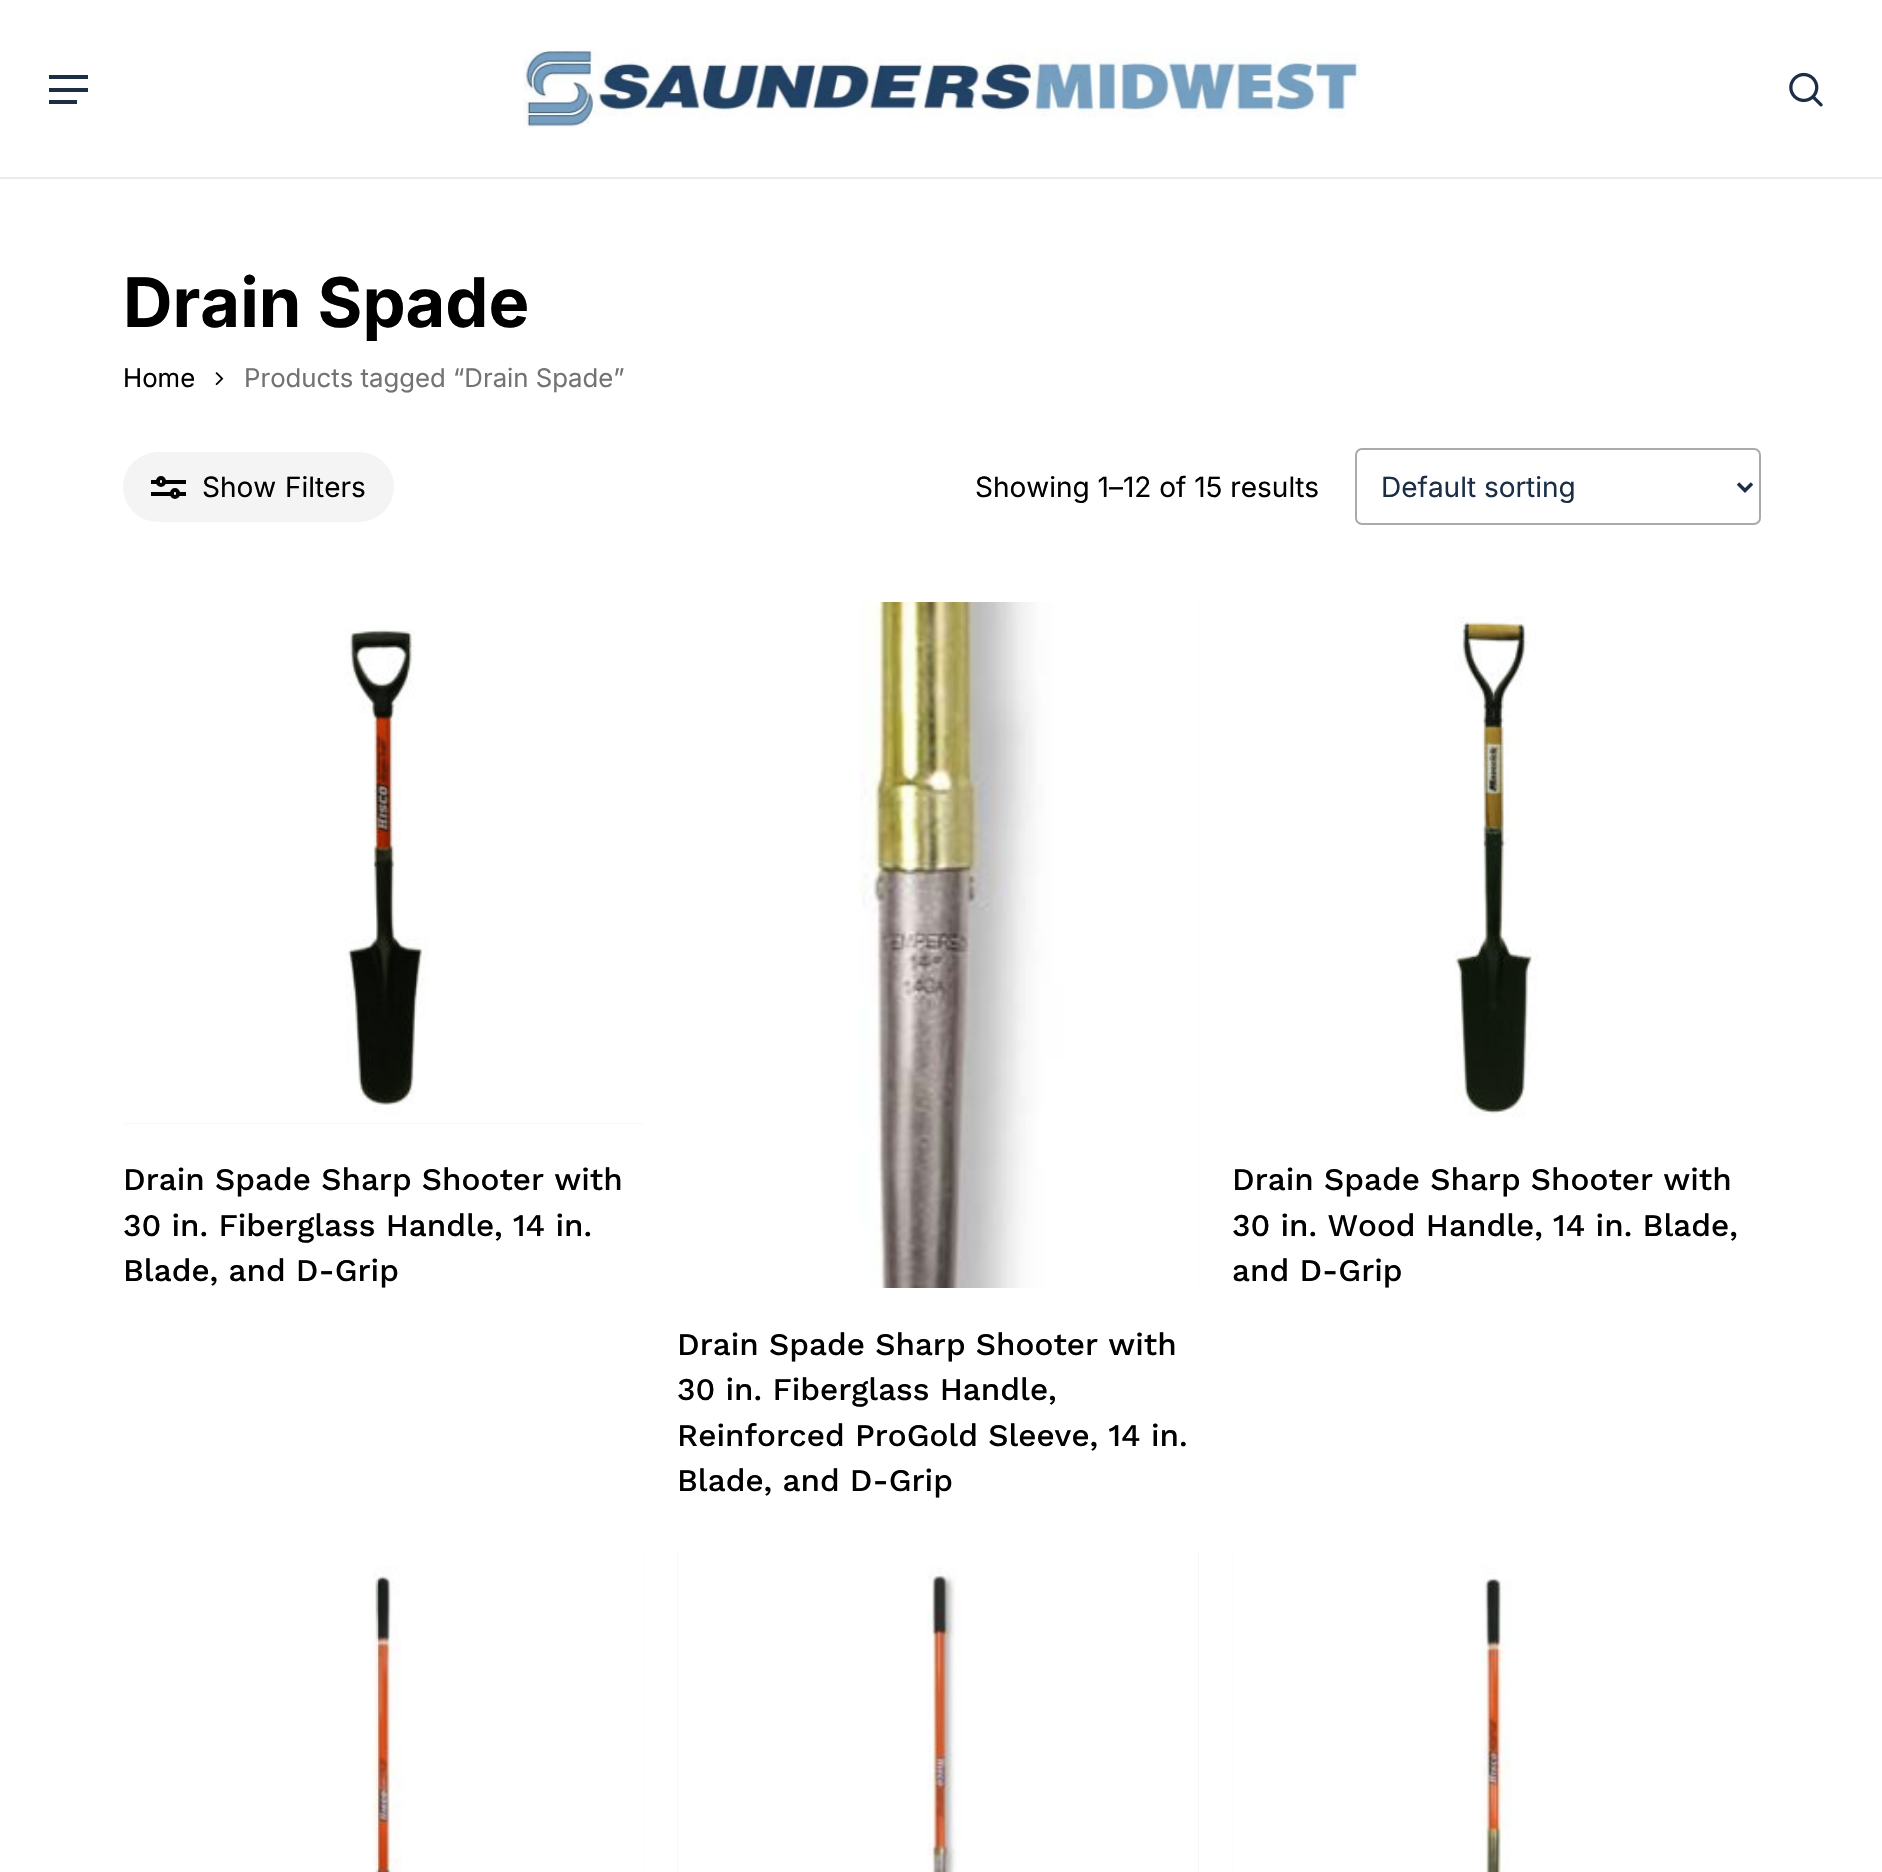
void draw(SkCanvas* canvas) {
	SkPaint paint;
	paint.setAntiAlias(true);
	auto svgPath = [&](const char* data, bool evenOdd = false) {
		SkPath result = *SkParsePath::FromSVGString(data);
		if (evenOdd) result.setFillType(SkPathFillType::kEvenOdd);
		return result;
	};
	canvas->clear(0xffffffff);
	paint.setColor(0xffebebeb);
	canvas->drawRect(SkRect::MakeXYWH(0, 177, 1882, 2), paint);
	canvas->drawImageRect(SkImages::DeferredFromEncodedData(SkData::MakeFromFileName("img1.png")), SkRect::MakeXYWH(523, 49, 837, 79), SkSamplingOptions());
	paint.setColor(0xff1b2e45);
	canvas->drawRect(SkRect::MakeXYWH(49, 75, 39, 4), paint);
	canvas->drawRect(SkRect::MakeXYWH(49, 100, 28, 4), paint);
	canvas->drawRect(SkRect::MakeXYWH(49, 88, 39, 4), paint);
	canvas->drawImageRect(SkImages::DeferredFromEncodedData(SkData::MakeFromFileName("img2.png")), SkRect::MakeXYWH(1789, 72, 34, 35), SkSamplingOptions());
	SkFont f1(fontMgr->matchFamilyStyle("Inter", SkFontStyle::Bold()), 68.5);
	f1.setSubpixel(true);
	paint.setColor(0xff000000);
	canvas->drawString("Drain Spade", 123, 327, f1, paint);
	SkFont f2(fontMgr->matchFamilyStyle("Inter", SkFontStyle::Normal()), 25.75);
	f2.setSubpixel(true);
	canvas->drawString("Home", 123, 387, f2, paint);
	canvas->drawImageRect(SkImages::DeferredFromEncodedData(SkData::MakeFromFileName("img3.png")), SkRect::MakeXYWH(215, 372, 9, 14), SkSamplingOptions());
	paint.setColor(0xff737373);
	canvas->drawString("Products tagged “Drain Spade”", 244, 387, f2, paint);
	paint.setColor(0xfff4f4f4);
	canvas->drawRoundRect(SkRect::MakeXYWH(123, 452, 271, 70), 35, 35, paint);
	paint.setColor(0xff000000);
	canvas->drawRect(SkRect::MakeXYWH(151, 480, 35, 4), paint);
	canvas->drawRect(SkRect::MakeXYWH(151, 492, 35, 4), paint);
	paint.setColor(0xffffffff);
	canvas->drawRoundRect(SkRect::MakeXYWH(158, 478, 6, 7), 3, 3, paint);
	paint.setStroke(true);
	paint.setStrokeWidth(4);
	paint.setColor(0xff000000);
	canvas->drawRoundRect(SkRect::MakeXYWH(158, 478, 6, 7), 3, 3, paint);
	paint.setStroke(false);
	paint.setColor(0xffffffff);
	canvas->drawRoundRect(SkRect::MakeXYWH(172, 490, 6, 7), 3, 3, paint);
	paint.setStroke(true);
	paint.setColor(0xff000000);
	canvas->drawRoundRect(SkRect::MakeXYWH(172, 490, 6, 7), 3, 3, paint);
	SkFont f3(fontMgr->matchFamilyStyle("Inter", SkFontStyle::Normal()), 28);
	f3.setSubpixel(true);
	paint.setStroke(false);
	canvas->drawString("Show", 202, 497, f3, paint);
	canvas->drawString("Filters", 285, 497, f3, paint);
	canvas->drawString("Showing 1–12 of 15 results", 975, 497, f3, paint);
	paint.setStroke(true);
	paint.setStrokeWidth(2);
	paint.setColor(0xffaaaaaa);
	canvas->drawRoundRect(SkRect::MakeXYWH(1356, 449, 404, 75), 6, 6, paint);
	paint.setStrokeWidth(3.5);
	paint.setColor(0xff1b2e45);
	canvas->drawPath(svgPath("M1738 483.5L1745 490.5L1752 483.5"), paint);
	paint.setStroke(false);
	canvas->drawString("Default sorting", 1381, 497, f3, paint);
	paint.setColor(0xfff8f8f8);
	canvas->drawRect(SkRect::MakeXYWH(123, 1123, 521, 1), paint);
	canvas->drawImageRect(SkImages::DeferredFromEncodedData(SkData::MakeFromFileName("img4.png")), SkRect::MakeXYWH(123, 602, 521, 521), SkSamplingOptions());
	SkFont f4(fontMgr->matchFamilyStyle("Work Sans", SkFontStyle(500, SkFontStyle::kNormal_Width, SkFontStyle::kUpright_Slant)), 31.5);
	f4.setSubpixel(true);
	paint.setColor(0xff000000);
	canvas->drawString("Drain Spade Sharp Shooter with", 123, 1190, f4, paint);
	canvas->drawString("30 in. Fiberglass Handle, 14 in.", 123, 1236, f4, paint);
	canvas->drawString("Blade, and D-Grip", 123, 1281, f4, paint);
	canvas->drawImageRect(SkImages::DeferredFromEncodedData(SkData::MakeFromFileName("img5.png")), SkRect::MakeXYWH(1232, 602, 522, 522), SkSamplingOptions());
	canvas->drawString("Drain Spade Sharp Shooter with", 1232, 1190, f4, paint);
	canvas->drawString("30 in. Wood Handle, 14 in. Blade,", 1232, 1236, f4, paint);
	canvas->drawString("and D-Grip", 1232, 1281, f4, paint);
	paint.setColor(0xfff8f8f8);
	canvas->drawRect(SkRect::MakeXYWH(1198, 602, 1, 686), paint);
	canvas->drawImageRect(SkImages::DeferredFromEncodedData(SkData::MakeFromFileName("img6.png")), SkRect::MakeXYWH(677, 602, 522, 686), SkSamplingOptions());
	paint.setColor(0xff000000);
	canvas->drawString("Drain Spade Sharp Shooter with", 677, 1355, f4, paint);
	canvas->drawString("30 in. Fiberglass Handle,", 677, 1400, f4, paint);
	canvas->drawString("Reinforced ProGold Sleeve, 14 in.", 677, 1446, f4, paint);
	canvas->drawString("Blade, and D-Grip", 677, 1491, f4, paint);
	paint.setColor(0xfff8f8f8);
	canvas->drawRect(SkRect::MakeXYWH(643, 1552, 1, 320), paint);
	canvas->drawImageRect(SkImages::DeferredFromEncodedData(SkData::MakeFromFileName("img7.png")), SkRect::MakeXYWH(123, 1552, 521, 320), SkSamplingOptions());
	canvas->drawRect(SkRect::MakeXYWH(677, 1552, 522, 320), paint);
	canvas->drawImageRect(SkImages::DeferredFromEncodedData(SkData::MakeFromFileName("img8.png")), SkRect::MakeXYWH(678, 1552, 520, 320), SkSamplingOptions());
	canvas->drawRect(SkRect::MakeXYWH(1232, 1552, 1, 320), paint);
	canvas->drawImageRect(SkImages::DeferredFromEncodedData(SkData::MakeFromFileName("img9.png")), SkRect::MakeXYWH(1232, 1552, 522, 320), SkSamplingOptions());
}
